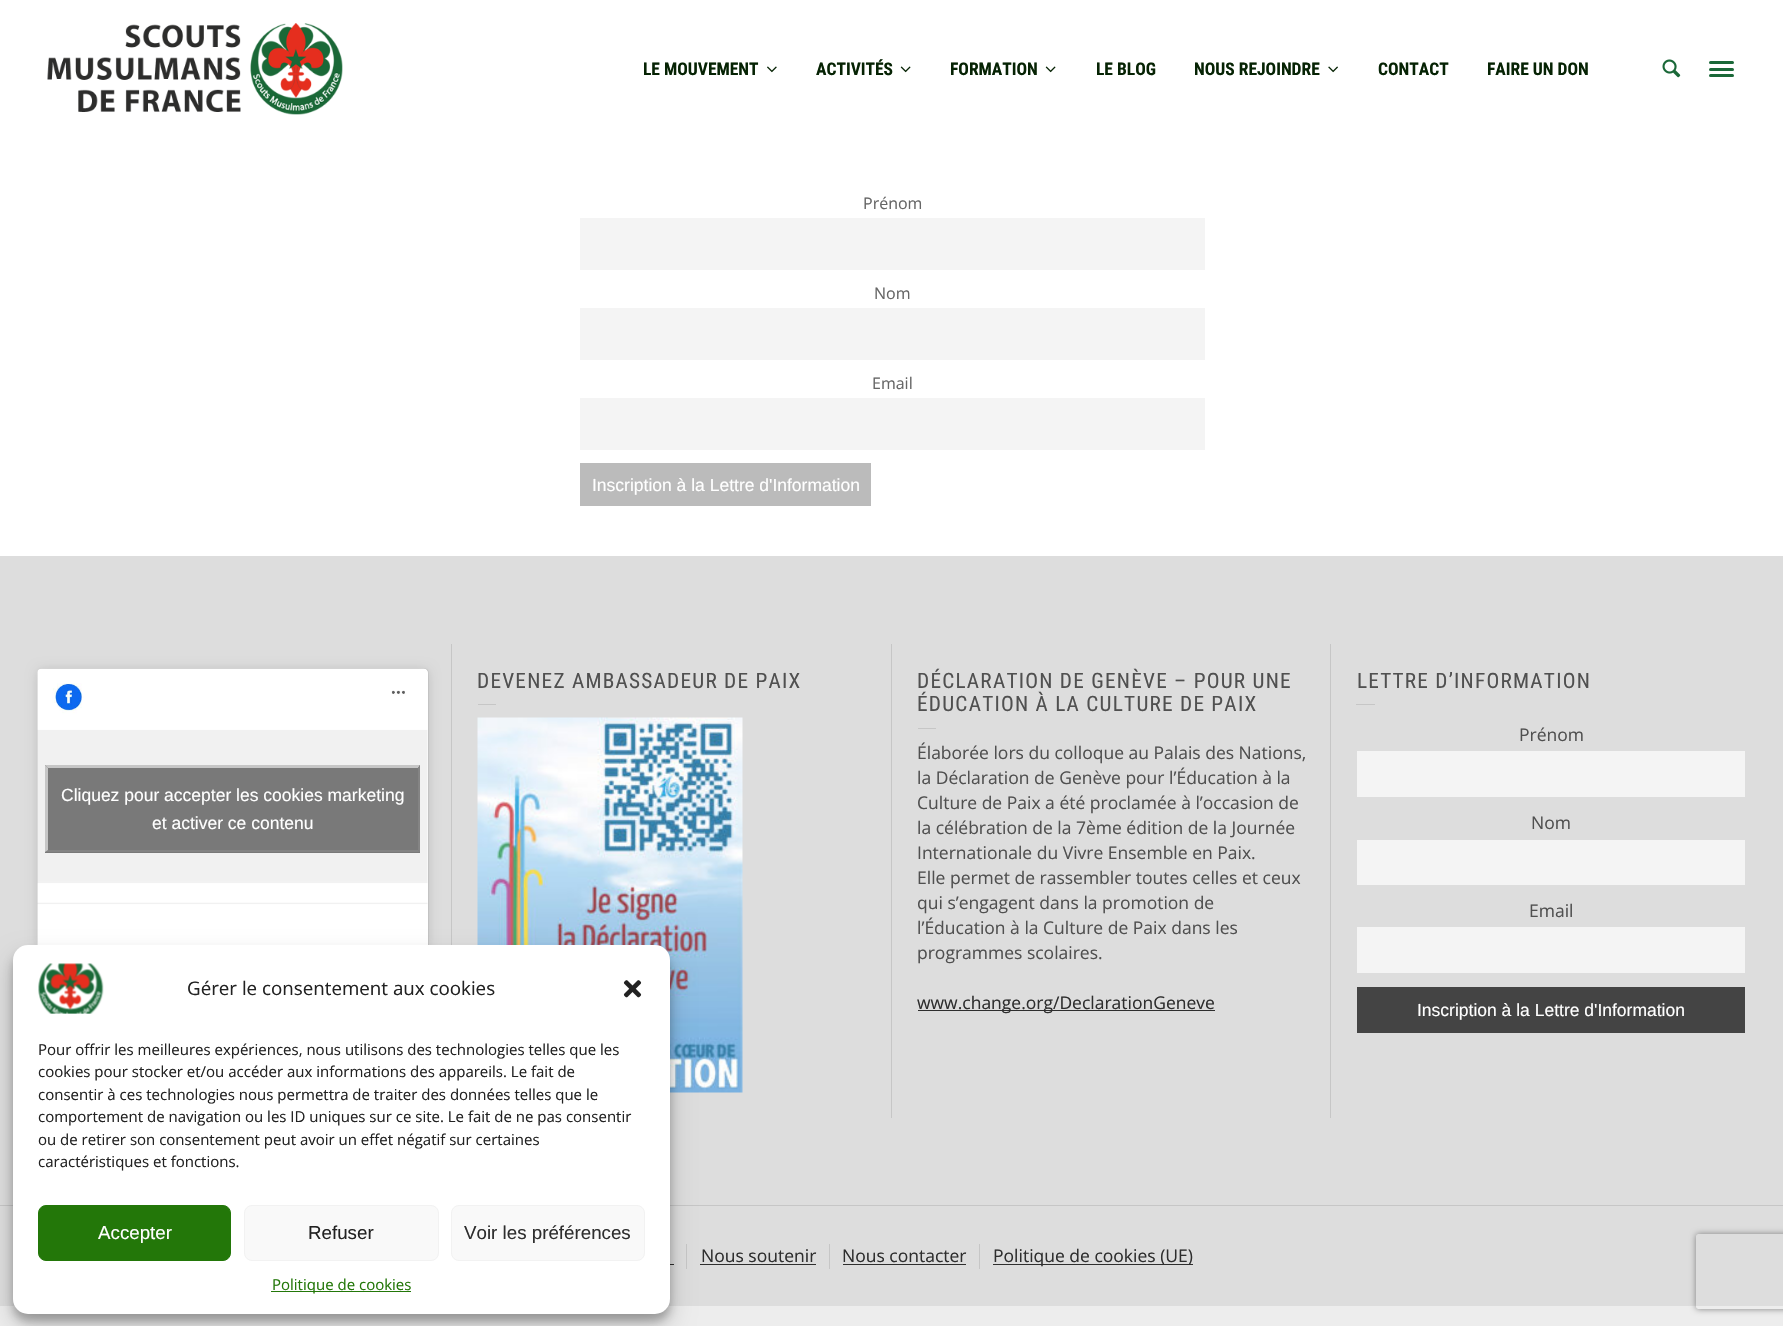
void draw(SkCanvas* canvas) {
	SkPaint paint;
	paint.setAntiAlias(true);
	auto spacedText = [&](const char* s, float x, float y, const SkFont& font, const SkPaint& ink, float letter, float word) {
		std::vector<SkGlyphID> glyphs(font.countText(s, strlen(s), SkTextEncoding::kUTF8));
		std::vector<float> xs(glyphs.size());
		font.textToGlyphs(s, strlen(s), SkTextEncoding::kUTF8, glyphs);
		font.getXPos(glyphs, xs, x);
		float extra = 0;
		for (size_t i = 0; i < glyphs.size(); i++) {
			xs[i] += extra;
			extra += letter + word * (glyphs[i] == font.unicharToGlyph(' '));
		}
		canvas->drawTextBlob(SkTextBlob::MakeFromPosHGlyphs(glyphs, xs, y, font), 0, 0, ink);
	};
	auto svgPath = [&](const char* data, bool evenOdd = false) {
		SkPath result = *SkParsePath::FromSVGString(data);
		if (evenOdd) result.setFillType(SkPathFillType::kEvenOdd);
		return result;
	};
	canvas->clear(0xffededed);
	paint.setColor(0xffffffff);
	canvas->drawRect(SkRect::MakeXYWH(0, 0, 1783, 556), paint);
	canvas->drawImageRect(SkImages::DeferredFromEncodedData(SkData::MakeFromFileName("img1.png")), SkRect::MakeXYWH(47, 23, 296, 92), SkSamplingOptions());
	SkFont f1(fontMgr->matchFamilyStyle("Roboto Condensed", SkFontStyle::Bold()), 17.5);
	f1.setSubpixel(true);
	paint.setColor(0xff062304);
	canvas->drawString("LE MOUVEMENT", 643, 75, f1, paint);
	canvas->drawImageRect(SkImages::DeferredFromEncodedData(SkData::MakeFromFileName("img2.png")), SkRect::MakeXYWH(767, 66, 10, 7), SkSamplingOptions());
	canvas->drawString("ACTIVITÉS", 816, 75, f1, paint);
	canvas->drawImageRect(SkImages::DeferredFromEncodedData(SkData::MakeFromFileName("img3.png")), SkRect::MakeXYWH(900, 66, 11, 7), SkSamplingOptions());
	canvas->drawString("FORMATION", 950, 75, f1, paint);
	canvas->drawImageRect(SkImages::DeferredFromEncodedData(SkData::MakeFromFileName("img3.png")), SkRect::MakeXYWH(1045, 66, 11, 7), SkSamplingOptions());
	canvas->drawString("LE BLOG", 1096, 75, f1, paint);
	canvas->drawString("NOUS REJOINDRE", 1194, 75, f1, paint);
	canvas->drawImageRect(SkImages::DeferredFromEncodedData(SkData::MakeFromFileName("img4.png")), SkRect::MakeXYWH(1328, 66, 10, 7), SkSamplingOptions());
	canvas->drawString("CONTACT", 1378, 75, f1, paint);
	canvas->drawString("FAIRE UN DON", 1487, 75, f1, paint);
	canvas->drawImageRect(SkImages::DeferredFromEncodedData(SkData::MakeFromFileName("img5.png")), SkRect::MakeXYWH(1662, 59, 19, 19), SkSamplingOptions());
	paint.setColor(0xff1a6838);
	canvas->drawRoundRect(SkRect::MakeXYWH(1709, 61, 25, 3), 1.5, 1.5, paint);
	canvas->drawRoundRect(SkRect::MakeXYWH(1709, 68, 25, 3), 1.5, 1.5, paint);
	canvas->drawRoundRect(SkRect::MakeXYWH(1709, 74, 25, 3), 1.5, 1.5, paint);
	SkFont f2(fontMgr->matchFamilyStyle("Open Sans", SkFontStyle::Normal()), 16);
	f2.setSubpixel(true);
	paint.setColor(0xff666666);
	canvas->drawString("Prénom", 863, 209, f2, paint);
	paint.setColor(0xfff4f4f4);
	canvas->drawRect(SkRect::MakeXYWH(580, 218, 625, 52), paint);
	paint.setColor(0xff666666);
	canvas->drawString("Nom", 874, 299, f2, paint);
	paint.setColor(0xfff4f4f4);
	canvas->drawRect(SkRect::MakeXYWH(580, 308, 625, 52), paint);
	paint.setColor(0xff666666);
	canvas->drawString("Email", 872, 389, f2, paint);
	paint.setColor(0xfff4f4f4);
	canvas->drawRect(SkRect::MakeXYWH(580, 398, 625, 52), paint);
	paint.setColor(0xffbbbbbb);
	canvas->drawRect(SkRect::MakeXYWH(580, 463, 291, 43), paint);
	SkFont f3(fontMgr->matchFamilyStyle("Liberation Sans", SkFontStyle::Normal()), 17.5);
	f3.setSubpixel(true);
	paint.setColor(0xffffffff);
	canvas->drawString("Inscription à la Lettre d'Information", 592, 491, f3, paint);
	paint.setColor(0xffdddddd);
	canvas->drawRect(SkRect::MakeXYWH(0, 556, 1783, 649), paint);
	paint.setColor(0x26000000);
	paint.setMaskFilter(SkMaskFilter::MakeBlur(kNormal_SkBlurStyle, 6));
	canvas->drawRoundRect(SkRect::MakeXYWH(38, 670, 390, 281), 4, 4, paint);
	paint.setMaskFilter(nullptr);
	paint.setColor(0x80000000);
	paint.setMaskFilter(SkMaskFilter::MakeBlur(kNormal_SkBlurStyle, 0.5));
	canvas->drawRoundRect(SkRect::MakeXYWH(38, 669, 390, 281), 4, 4, paint);
	paint.setMaskFilter(nullptr);
	paint.setColor(0xffffffff);
	canvas->drawRoundRect(SkRect::MakeXYWH(38, 669, 390, 281), 4, 4, paint);
	canvas->drawImageRect(SkImages::DeferredFromEncodedData(SkData::MakeFromFileName("img6.png")), SkRect::MakeXYWH(37, 668, 391, 277), SkSamplingOptions());
	paint.setColor(0xff797979);
	canvas->drawRect(SkRect::MakeXYWH(45, 765, 375, 88), paint);
	paint.setColor(0xffc6c6c6);
	canvas->drawPath(svgPath("M45 765H420L418 768H48Z"), paint);
	paint.setColor(0xff848484);
	canvas->drawPath(svgPath("M420 765V852L418 850V768Z"), paint);
	canvas->drawPath(svgPath("M420 852H45L48 850H418Z"), paint);
	paint.setColor(0xffc6c6c6);
	canvas->drawPath(svgPath("M45 852V765L48 768V850Z"), paint);
	paint.setColor(0xffffffff);
	canvas->drawString("Cliquez pour accepter les cookies marketing", 61, 801, f3, paint);
	canvas->drawString("et activer ce contenu", 152, 829, f3, paint);
	paint.setColor(0xffc6c6c6);
	canvas->drawRect(SkRect::MakeXYWH(451, 644, 1, 301), paint);
	SkFont f4(fontMgr->matchFamilyStyle("Roboto Condensed", SkFontStyle::Normal()), 21.25);
	f4.setSubpixel(true);
	paint.setColor(0xff505050);
	spacedText("DEVENEZ AMBASSADEUR DE PAIX", 477, 688, f4, paint, 1.25, 0);
	paint.setColor(0xffc6c6c6);
	canvas->drawRect(SkRect::MakeXYWH(478, 704, 18, 1), paint);
	canvas->drawImageRect(SkImages::DeferredFromEncodedData(SkData::MakeFromFileName("img7.png")), SkRect::MakeXYWH(477, 717, 266, 376), SkSamplingOptions());
	canvas->drawRect(SkRect::MakeXYWH(891, 644, 1, 474), paint);
	paint.setColor(0xff505050);
	spacedText("DÉCLARATION DE GENÈVE – POUR UNE", 917, 688, f4, paint, 1.25, 0);
	spacedText("ÉDUCATION À LA CULTURE DE PAIX", 917, 711, f4, paint, 1.25, 0);
	paint.setColor(0xffc6c6c6);
	canvas->drawRect(SkRect::MakeXYWH(918, 728, 18, 1), paint);
	SkFont f5(fontMgr->matchFamilyStyle("Open Sans", SkFontStyle::Normal()), 17.5);
	f5.setSubpixel(true);
	paint.setColor(0xff505050);
	canvas->drawString("Élaborée lors du colloque au Palais des Nations,", 917, 759, f5, paint);
	canvas->drawString("la Déclaration de Genève pour l’Éducation à la", 917, 784, f5, paint);
	canvas->drawString("Culture de Paix a été proclamée à l’occasion de", 917, 809, f5, paint);
	canvas->drawString("la célébration de la 7ème édition de la Journée", 917, 834, f5, paint);
	canvas->drawString("Internationale du Vivre Ensemble en Paix.", 917, 859, f5, paint);
	canvas->drawString("Elle permet de rassembler toutes celles et ceux", 917, 884, f5, paint);
	canvas->drawString("qui s’engagent dans la promotion de", 917, 909, f5, paint);
	canvas->drawString("l’Éducation à la Culture de Paix dans les", 917, 934, f5, paint);
	canvas->drawString("programmes scolaires.", 917, 959, f5, paint);
	paint.setColor(0xff2e2e2e);
	canvas->drawRect(SkRect::MakeXYWH(918, 1010, 297, 1), paint);
	canvas->drawString("www.change.org/DeclarationGeneve", 917, 1009, f5, paint);
	paint.setColor(0xffc6c6c6);
	canvas->drawRect(SkRect::MakeXYWH(1330, 644, 1, 474), paint);
	paint.setColor(0xff505050);
	spacedText("LETTRE D’INFORMATION", 1357, 688, f4, paint, 1.25, 0);
	paint.setColor(0xffc6c6c6);
	canvas->drawRect(SkRect::MakeXYWH(1356, 704, 19, 1), paint);
	paint.setColor(0xff505050);
	canvas->drawString("Prénom", 1519, 741, f5, paint);
	paint.setColor(0xfff4f4f4);
	canvas->drawRect(SkRect::MakeXYWH(1357, 751, 388, 46), paint);
	paint.setColor(0xff505050);
	canvas->drawString("Nom", 1531, 829, f5, paint);
	paint.setColor(0xfff4f4f4);
	canvas->drawRect(SkRect::MakeXYWH(1357, 840, 388, 45), paint);
	paint.setColor(0xff505050);
	canvas->drawString("Email", 1529, 917, f5, paint);
	paint.setColor(0xfff4f4f4);
	canvas->drawRect(SkRect::MakeXYWH(1357, 927, 388, 46), paint);
	paint.setColor(0xff444444);
	canvas->drawRect(SkRect::MakeXYWH(1357, 987, 388, 46), paint);
	paint.setColor(0xffffffff);
	canvas->drawString("Inscription à la Lettre d'Information", 1417, 1016, f3, paint);
	paint.setColor(0xffdddddd);
	canvas->drawRect(SkRect::MakeXYWH(0, 1206, 1783, 100), paint);
	paint.setColor(0xffc6c6c6);
	canvas->drawRect(SkRect::MakeXYWH(0, 1205, 1783, 1), paint);
	canvas->drawRect(SkRect::MakeXYWH(686, 1244, 1, 25), paint);
	paint.setColor(0xff2e2e2e);
	canvas->drawString("Nous soutenir", 701, 1262, f5, paint);
	canvas->drawRect(SkRect::MakeXYWH(700, 1264, 116, 1), paint);
	paint.setColor(0xffc6c6c6);
	canvas->drawRect(SkRect::MakeXYWH(829, 1244, 1, 25), paint);
	paint.setColor(0xff2e2e2e);
	canvas->drawString("Nous contacter", 842, 1262, f5, paint);
	canvas->drawRect(SkRect::MakeXYWH(843, 1264, 123, 1), paint);
	paint.setColor(0xffc6c6c6);
	canvas->drawRect(SkRect::MakeXYWH(979, 1244, 1, 25), paint);
	paint.setColor(0xff2e2e2e);
	canvas->drawRect(SkRect::MakeXYWH(993, 1264, 200, 1), paint);
	canvas->drawString("Politique de cookies (UE)", 993, 1262, f5, paint);
	canvas->drawRect(SkRect::MakeXYWH(670, 1264, 4, 1), paint);
	paint.setColor(0x3b000000);
	paint.setMaskFilter(SkMaskFilter::MakeBlur(kNormal_SkBlurStyle, 4));
	canvas->drawRoundRect(SkRect::MakeXYWH(13, 953, 657, 368), 15, 15, paint);
	paint.setMaskFilter(nullptr);
	paint.setColor(0x30000000);
	paint.setMaskFilter(SkMaskFilter::MakeBlur(kNormal_SkBlurStyle, 12.5));
	canvas->drawRoundRect(SkRect::MakeXYWH(13, 958, 657, 368), 15, 15, paint);
	paint.setMaskFilter(nullptr);
	paint.setColor(0xffffffff);
	canvas->drawRoundRect(SkRect::MakeXYWH(13, 945, 657, 369), 15, 15, paint);
	canvas->drawImageRect(SkImages::DeferredFromEncodedData(SkData::MakeFromFileName("img8.png")), SkRect::MakeXYWH(38, 963, 66, 51), SkSamplingOptions());
	SkFont f6(fontMgr->matchFamilyStyle("Open Sans", SkFontStyle::Normal()), 18.75);
	f6.setSubpixel(true);
	paint.setColor(0xff222222);
	canvas->drawString("Gérer le consentement aux cookies", 187, 995, f6, paint);
	canvas->drawImageRect(SkImages::DeferredFromEncodedData(SkData::MakeFromFileName("img9.png")), SkRect::MakeXYWH(623, 980, 19, 18), SkSamplingOptions());
	SkFont f7(fontMgr->matchFamilyStyle("Open Sans", SkFontStyle::Normal()), 15);
	f7.setSubpixel(true);
	canvas->drawString("Pour offrir les meilleures expériences, nous utilisons des technologies telles que les", 38, 1055, f7, paint);
	canvas->drawString("cookies pour stocker et/ou accéder aux informations des appareils. Le fait de", 38, 1077, f7, paint);
	canvas->drawString("consentir à ces technologies nous permettra de traiter des données telles que le", 38, 1100, f7, paint);
	canvas->drawString("comportement de navigation ou les ID uniques sur ce site. Le fait de ne pas consentir", 38, 1122, f7, paint);
	canvas->drawString("ou de retirer son consentement peut avoir un effet négatif sur certaines", 38, 1145, f7, paint);
	canvas->drawString("caractéristiques et fonctions.", 38, 1167, f7, paint);
	paint.setColor(0xff237709);
	canvas->drawRoundRect(SkRect::MakeXYWH(38.5, 1205.5, 192, 55), 7.5, 7.5, paint);
	paint.setStroke(true);
	paint.setStrokeWidth(1);
	canvas->drawRoundRect(SkRect::MakeXYWH(38.5, 1205.5, 192, 55), 7.5, 7.5, paint);
	SkFont f8(fontMgr->matchFamilyStyle("Liberation Sans", SkFontStyle::Normal()), 18.75);
	f8.setSubpixel(true);
	paint.setStroke(false);
	paint.setColor(0xffffffff);
	canvas->drawString("Accepter", 98, 1239, f8, paint);
	paint.setColor(0xfff9f9f9);
	canvas->drawRoundRect(SkRect::MakeXYWH(244.5, 1205.5, 194, 55), 7.5, 7.5, paint);
	paint.setStroke(true);
	paint.setColor(0xfff2f2f2);
	canvas->drawRoundRect(SkRect::MakeXYWH(244.5, 1205.5, 194, 55), 7.5, 7.5, paint);
	paint.setStroke(false);
	paint.setColor(0xff222222);
	canvas->drawString("Refuser", 308, 1239, f8, paint);
	paint.setColor(0xfff9f9f9);
	canvas->drawRoundRect(SkRect::MakeXYWH(451.5, 1205.5, 193, 55), 7.5, 7.5, paint);
	paint.setStroke(true);
	paint.setColor(0xfff2f2f2);
	canvas->drawRoundRect(SkRect::MakeXYWH(451.5, 1205.5, 193, 55), 7.5, 7.5, paint);
	paint.setStroke(false);
	paint.setColor(0xff2e2e2e);
	canvas->drawString("Voir les préférences", 464, 1239, f8, paint);
	paint.setColor(0xff237709);
	canvas->drawRect(SkRect::MakeXYWH(271, 1291, 140, 1), paint);
	canvas->drawString("Politique de cookies", 272, 1290, f7, paint);
	canvas->save();
	canvas->clipPath(svgPath("M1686 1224H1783V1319H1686ZM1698.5 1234H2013.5C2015 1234 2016 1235 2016 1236.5V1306.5C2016 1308 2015 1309 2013.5 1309H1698.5C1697 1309 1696 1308 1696 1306.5V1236.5C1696 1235 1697 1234 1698.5 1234Z", true), true);
	paint.setColor(0xff808080);
	paint.setMaskFilter(SkMaskFilter::MakeBlur(kNormal_SkBlurStyle, 3));
	canvas->drawRoundRect(SkRect::MakeXYWH(1696, 1234, 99, 75), 2.5, 2.5, paint);
	paint.setMaskFilter(nullptr);
	canvas->restore();
}
